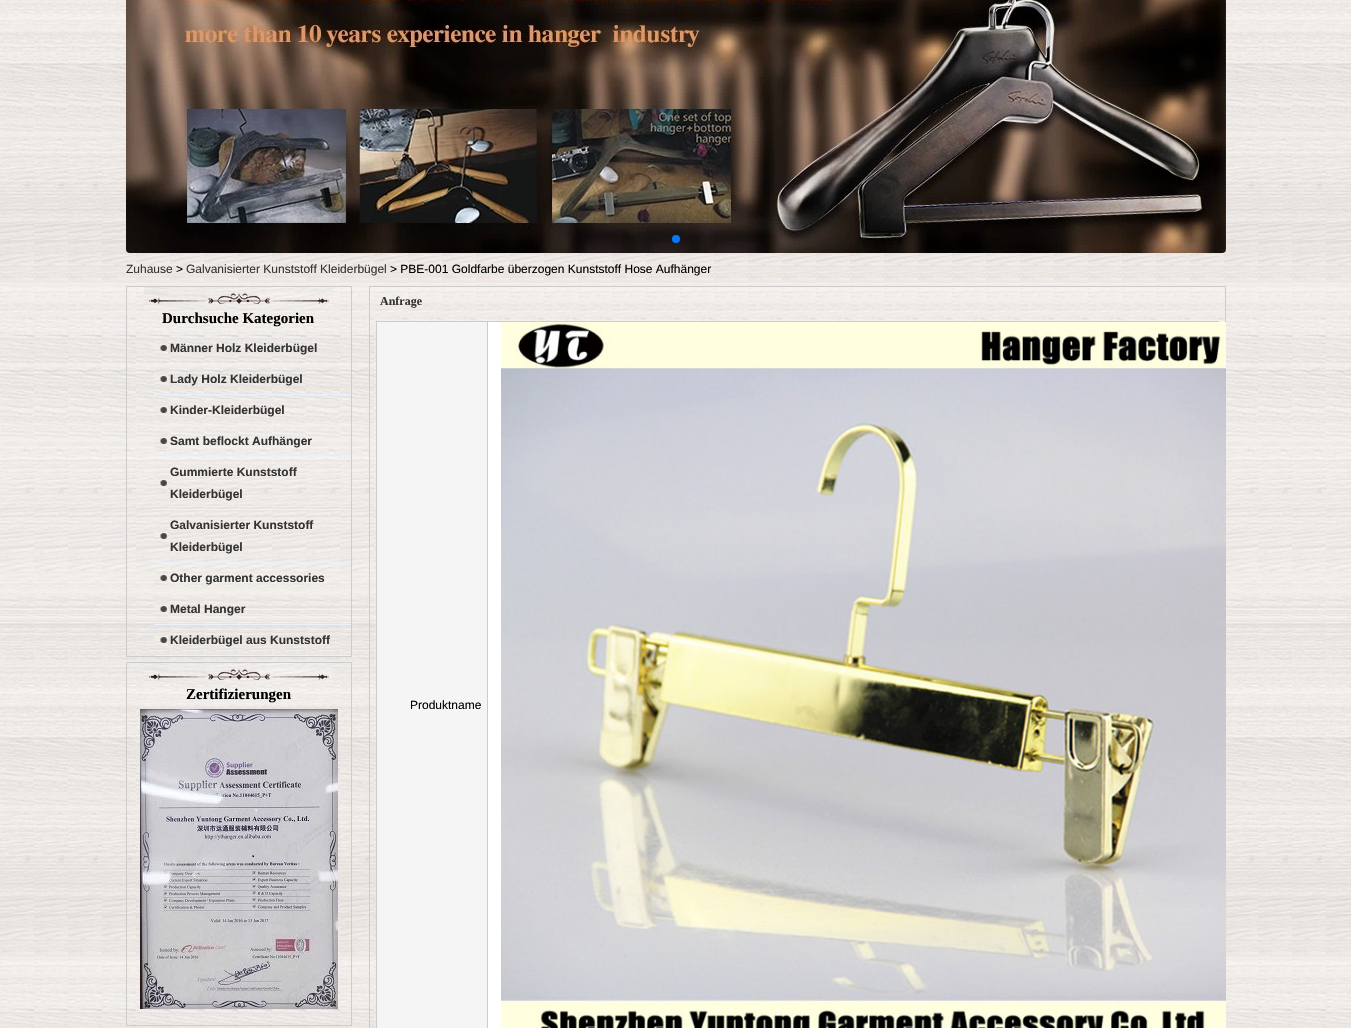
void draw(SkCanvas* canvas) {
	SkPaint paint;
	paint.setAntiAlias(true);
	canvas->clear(0xffffffff);
	canvas->drawImageRect(SkImages::DeferredFromEncodedData(SkData::MakeFromFileName("img1.png")), SkRect::MakeXYWH(0, 0, 1351, 1028), SkSamplingOptions());
	canvas->drawImageRect(SkImages::DeferredFromEncodedData(SkData::MakeFromFileName("img2.png")), SkRect::MakeXYWH(126, 0, 1100, 253), SkSamplingOptions());
	paint.setColor(0xff007aff);
	canvas->drawCircle(676, 239, 4, paint);
	SkFont f1(fontMgr->matchFamilyStyle("Liberation Sans", SkFontStyle::Normal()), 12);
	f1.setSubpixel(true);
	paint.setColor(0xff333333);
	canvas->drawString("Zuhause", 126, 273, f1, paint);
	paint.setColor(0xff000000);
	canvas->drawString(">", 176, 273, f1, paint);
	paint.setColor(0xff333333);
	canvas->drawString("Galvanisierter Kunststoff Kleiderbügel", 186, 273, f1, paint);
	paint.setColor(0xff000000);
	canvas->drawString("> PBE-001 Goldfarbe überzogen Kunststoff Hose Aufhänger", 390, 273, f1, paint);
	paint.setStroke(true);
	paint.setStrokeWidth(1);
	paint.setColor(0xffcccccc);
	canvas->drawRect(SkRect::MakeXYWH(126.5, 286.5, 225, 370), paint);
	canvas->drawImageRect(SkImages::DeferredFromEncodedData(SkData::MakeFromFileName("img3.png")), SkRect::MakeXYWH(144, 287, 189, 22), SkSamplingOptions());
	SkFont f2(fontMgr->matchFamilyStyle("Liberation Serif", SkFontStyle::Bold()), 15);
	f2.setSubpixel(true);
	paint.setStroke(false);
	paint.setColor(0xff000000);
	canvas->drawString("Durchsuche Kategorien", 162, 323, f2, paint);
	canvas->drawImageRect(SkImages::DeferredFromEncodedData(SkData::MakeFromFileName("img4.png")), SkRect::MakeXYWH(154, 341, 14, 14), SkSamplingOptions());
	paint.setColor(0xffe7f3ff);
	canvas->drawRect(SkRect::MakeXYWH(154, 363, 197, 1), paint);
	SkFont f3(fontMgr->matchFamilyStyle("Liberation Sans", SkFontStyle::Bold()), 12);
	f3.setSubpixel(true);
	paint.setColor(0xff333333);
	canvas->drawString("Männer Holz Kleiderbügel", 170, 352, f3, paint);
	canvas->drawImageRect(SkImages::DeferredFromEncodedData(SkData::MakeFromFileName("img5.png")), SkRect::MakeXYWH(154, 372, 14, 15), SkSamplingOptions());
	paint.setColor(0xffe7f3ff);
	canvas->drawRect(SkRect::MakeXYWH(154, 394, 197, 1), paint);
	paint.setColor(0xff333333);
	canvas->drawString("Lady Holz Kleiderbügel", 170, 383, f3, paint);
	canvas->drawImageRect(SkImages::DeferredFromEncodedData(SkData::MakeFromFileName("img5.png")), SkRect::MakeXYWH(154, 403, 14, 15), SkSamplingOptions());
	paint.setColor(0xffe7f3ff);
	canvas->drawRect(SkRect::MakeXYWH(154, 425, 197, 1), paint);
	paint.setColor(0xff333333);
	canvas->drawString("Kinder-Kleiderbügel", 170, 414, f3, paint);
	canvas->drawImageRect(SkImages::DeferredFromEncodedData(SkData::MakeFromFileName("img5.png")), SkRect::MakeXYWH(154, 434, 14, 15), SkSamplingOptions());
	paint.setColor(0xffe7f3ff);
	canvas->drawRect(SkRect::MakeXYWH(154, 456, 197, 1), paint);
	paint.setColor(0xff333333);
	canvas->drawString("Samt beflockt Aufhänger", 170, 445, f3, paint);
	canvas->drawImageRect(SkImages::DeferredFromEncodedData(SkData::MakeFromFileName("img5.png")), SkRect::MakeXYWH(154, 476, 14, 15), SkSamplingOptions());
	paint.setColor(0xffe7f3ff);
	canvas->drawRect(SkRect::MakeXYWH(154, 509, 197, 1), paint);
	paint.setColor(0xff333333);
	canvas->drawString("Gummierte Kunststoff", 170, 476, f3, paint);
	canvas->drawString("Kleiderbügel", 170, 498, f3, paint);
	canvas->drawImageRect(SkImages::DeferredFromEncodedData(SkData::MakeFromFileName("img5.png")), SkRect::MakeXYWH(154, 529, 14, 15), SkSamplingOptions());
	paint.setColor(0xffe7f3ff);
	canvas->drawRect(SkRect::MakeXYWH(154, 562, 197, 1), paint);
	paint.setColor(0xff333333);
	canvas->drawString("Galvanisierter Kunststoff", 170, 529, f3, paint);
	canvas->drawString("Kleiderbügel", 170, 551, f3, paint);
	canvas->drawImageRect(SkImages::DeferredFromEncodedData(SkData::MakeFromFileName("img5.png")), SkRect::MakeXYWH(154, 571, 14, 15), SkSamplingOptions());
	paint.setColor(0xffe7f3ff);
	canvas->drawRect(SkRect::MakeXYWH(154, 593, 197, 1), paint);
	paint.setColor(0xff333333);
	canvas->drawString("Other garment accessories", 170, 582, f3, paint);
	canvas->drawImageRect(SkImages::DeferredFromEncodedData(SkData::MakeFromFileName("img5.png")), SkRect::MakeXYWH(154, 602, 14, 15), SkSamplingOptions());
	paint.setColor(0xffe7f3ff);
	canvas->drawRect(SkRect::MakeXYWH(154, 624, 197, 1), paint);
	paint.setColor(0xff333333);
	canvas->drawString("Metal Hanger", 170, 613, f3, paint);
	canvas->drawImageRect(SkImages::DeferredFromEncodedData(SkData::MakeFromFileName("img5.png")), SkRect::MakeXYWH(154, 633, 14, 15), SkSamplingOptions());
	paint.setColor(0xffe7f3ff);
	canvas->drawRect(SkRect::MakeXYWH(154, 655, 197, 1), paint);
	paint.setColor(0xff333333);
	canvas->drawString("Kleiderbügel aus Kunststoff", 170, 644, f3, paint);
	paint.setStroke(true);
	paint.setColor(0xffcccccc);
	canvas->drawRect(SkRect::MakeXYWH(126.5, 662.5, 225, 363), paint);
	canvas->drawImageRect(SkImages::DeferredFromEncodedData(SkData::MakeFromFileName("img3.png")), SkRect::MakeXYWH(144, 663, 189, 22), SkSamplingOptions());
	paint.setStroke(false);
	paint.setColor(0xff000000);
	canvas->drawString("Zertifizierungen", 186, 699, f2, paint);
	canvas->drawImageRect(SkImages::DeferredFromEncodedData(SkData::MakeFromFileName("img6.png")), SkRect::MakeXYWH(140, 709, 198, 300), SkSamplingOptions());
	paint.setStroke(true);
	paint.setColor(0xffcccccc);
	canvas->drawRect(SkRect::MakeXYWH(369.5, 286.5, 856, 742), paint);
	SkFont f4(fontMgr->matchFamilyStyle("Liberation Serif", SkFontStyle::Bold()), 12);
	f4.setSubpixel(true);
	paint.setStroke(false);
	paint.setColor(0xff333333);
	canvas->drawString("Anfrage", 380, 305, f4, paint);
	paint.setColor(0xffcccccc);
	canvas->drawRect(SkRect::MakeXYWH(376, 321, 843, 707), paint);
	paint.setColor(0xfff5f5f5);
	canvas->drawRect(SkRect::MakeXYWH(377, 322, 110, 706), paint);
	paint.setColor(0xff000000);
	canvas->drawString("Produktname", 410, 709, f1, paint);
	paint.setColor(0xffffffff);
	canvas->drawRect(SkRect::MakeXYWH(488, 322, 13, 706), paint);
	canvas->drawImageRect(SkImages::DeferredFromEncodedData(SkData::MakeFromFileName("img7.png")), SkRect::MakeXYWH(501, 322, 725, 706), SkSamplingOptions());
}
